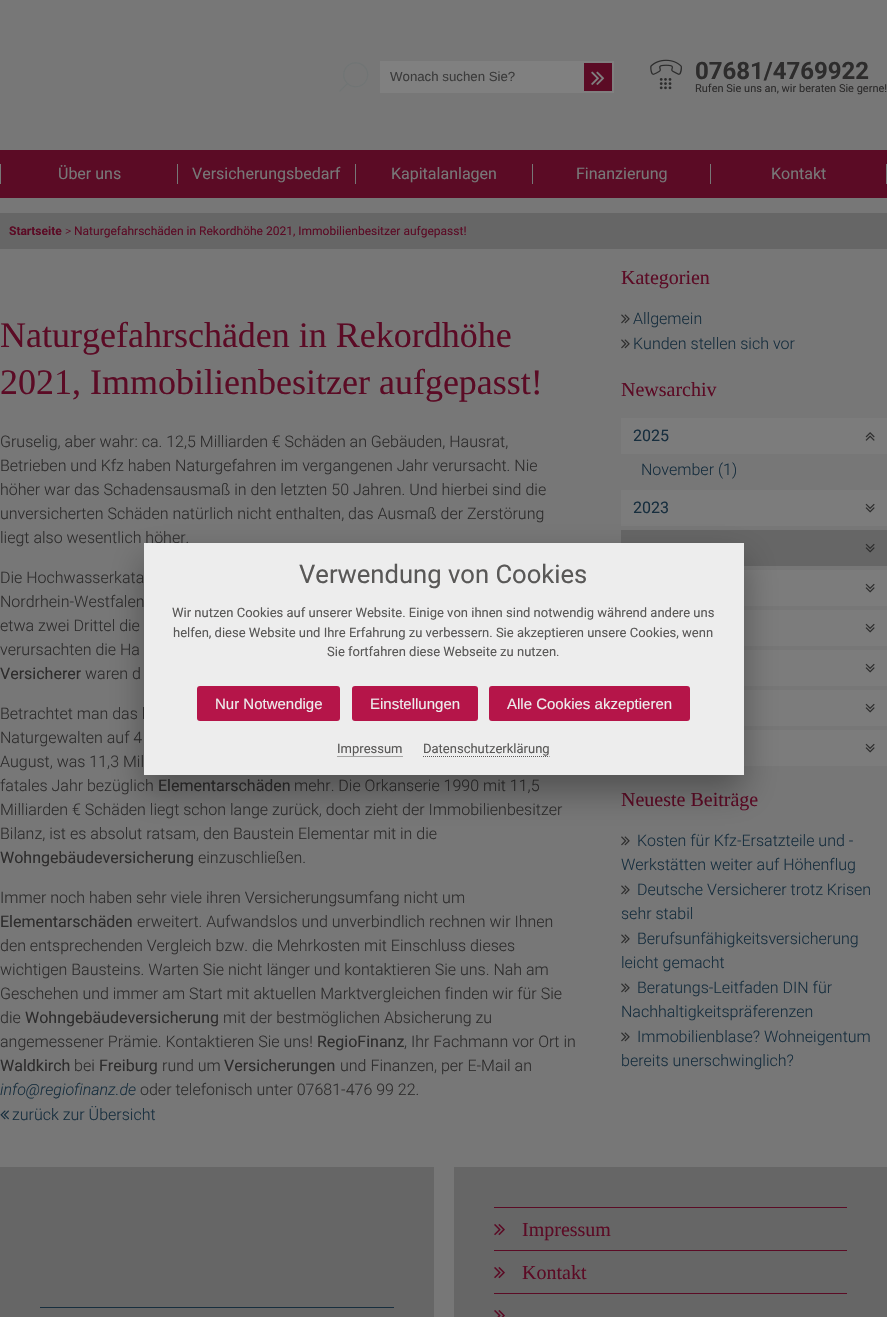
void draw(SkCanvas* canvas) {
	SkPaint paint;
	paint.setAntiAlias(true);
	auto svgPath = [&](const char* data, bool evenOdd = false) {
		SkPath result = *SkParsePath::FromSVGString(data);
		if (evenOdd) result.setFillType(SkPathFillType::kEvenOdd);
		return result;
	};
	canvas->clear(0xff777777);
	canvas->drawImageRect(SkImages::DeferredFromEncodedData(SkData::MakeFromFileName("img1.png")), SkRect::MakeXYWH(339, 62, 30, 30), SkSamplingOptions());
	paint.setColor(0xff808080);
	canvas->drawRect(SkRect::MakeXYWH(380, 61, 234, 32), paint);
	SkFont f1(fontMgr->matchFamilyStyle("Liberation Sans", SkFontStyle::Normal()), 13.25);
	f1.setSubpixel(true);
	paint.setColor(0xff3b3b3b);
	canvas->drawString("Wonach suchen Sie?", 390, 81, f1, paint);
	paint.setColor(0xff5b0b25);
	canvas->drawRect(SkRect::MakeXYWH(584, 63, 28, 28), paint);
	canvas->drawImageRect(SkImages::DeferredFromEncodedData(SkData::MakeFromFileName("img2.png")), SkRect::MakeXYWH(591, 71, 14, 14), SkSamplingOptions());
	canvas->drawImageRect(SkImages::DeferredFromEncodedData(SkData::MakeFromFileName("img3.png")), SkRect::MakeXYWH(650, 59, 32, 31), SkSamplingOptions());
	SkFont f2(fontMgr->matchFamilyStyle("Roboto", SkFontStyle::Bold()), 24);
	f2.setSubpixel(true);
	paint.setColor(0xff2d2c2c);
	canvas->drawString("07681/4769922", 695, 79, f2, paint);
	SkFont f3(fontMgr->matchFamilyStyle("Roboto", SkFontStyle::Normal()), 11);
	f3.setSubpixel(true);
	canvas->drawString("Rufen Sie uns an, wir beraten Sie gerne!", 695, 92, f3, paint);
	paint.setColor(0xff5b0b25);
	canvas->drawRect(SkRect::MakeXYWH(0, 150, 887, 48), paint);
	paint.setColor(0xff777777);
	canvas->drawRect(SkRect::MakeXYWH(0, 164, 1, 20), paint);
	SkFont f4(fontMgr->matchFamilyStyle("Roboto", SkFontStyle::Normal()), 16);
	f4.setSubpixel(true);
	canvas->drawString("Über uns", 58, 179, f4, paint);
	canvas->drawRect(SkRect::MakeXYWH(177, 164, 1, 20), paint);
	canvas->drawString("Versicherungsbedarf", 192, 179, f4, paint);
	canvas->drawRect(SkRect::MakeXYWH(355, 164, 1, 20), paint);
	canvas->drawString("Kapitalanlagen", 391, 179, f4, paint);
	canvas->drawRect(SkRect::MakeXYWH(532, 164, 1, 20), paint);
	canvas->drawString("Finanzierung", 576, 179, f4, paint);
	canvas->drawRect(SkRect::MakeXYWH(886, 164, 1, 20), paint);
	canvas->drawRect(SkRect::MakeXYWH(710, 164, 1, 20), paint);
	canvas->drawString("Kontakt", 771, 179, f4, paint);
	paint.setColor(0xff666666);
	canvas->drawRect(SkRect::MakeXYWH(0, 213, 887, 36), paint);
	SkFont f5(fontMgr->matchFamilyStyle("Roboto", SkFontStyle::Bold()), 12);
	f5.setSubpixel(true);
	paint.setColor(0xff5b0b25);
	canvas->drawString("Startseite", 9, 235, f5, paint);
	SkFont f6(fontMgr->matchFamilyStyle("Roboto", SkFontStyle(300, SkFontStyle::kNormal_Width, SkFontStyle::kUpright_Slant)), 12);
	f6.setSubpixel(true);
	canvas->drawString(">", 65, 235, f6, paint);
	SkFont f7(fontMgr->matchFamilyStyle("Roboto", SkFontStyle::Normal()), 12);
	f7.setSubpixel(true);
	canvas->drawString("Naturgefahrschäden in Rekordhöhe 2021, Immobilienbesitzer aufgepasst!", 74, 235, f7, paint);
	SkFont f8(fontMgr->matchFamilyStyle("Liberation Serif", SkFontStyle::Normal()), 36);
	f8.setSubpixel(true);
	canvas->drawString("Naturgefahrschäden in Rekordhöhe", 0, 347, f8, paint);
	canvas->drawString("2021, Immobilienbesitzer aufgepasst!", 0, 394, f8, paint);
	SkFont f9(fontMgr->matchFamilyStyle("Roboto", SkFontStyle(300, SkFontStyle::kNormal_Width, SkFontStyle::kUpright_Slant)), 16);
	f9.setSubpixel(true);
	paint.setColor(0xff2d2c2c);
	canvas->drawString("Gruselig, aber wahr: ca. 12,5 Milliarden € Schäden an Gebäuden, Hausrat,", 0, 447, f9, paint);
	canvas->drawString("Betrieben und Kfz haben Naturgefahren im vergangenen Jahr verursacht. Nie", 0, 471, f9, paint);
	canvas->drawString("höher war das Schadensausmaß in den letzten 50 Jahren. Und hierbei sind die", 0, 495, f9, paint);
	canvas->drawString("unversicherten Schäden natürlich nicht enthalten, das Ausmaß der Zerstörung", 0, 519, f9, paint);
	canvas->drawString("liegt also wesentlich höher.", 0, 543, f9, paint);
	canvas->drawString("Die Hochwasserkata", 0, 583, f9, paint);
	canvas->drawString("Nordrhein-Westfalen", 0, 607, f9, paint);
	canvas->drawString("etwa zwei Drittel die", 0, 631, f9, paint);
	canvas->drawString("verursachten die Ha", 0, 655, f9, paint);
	canvas->drawString("Versicherer", 0, 679, f4, paint);
	canvas->drawString("waren d", 85, 679, f9, paint);
	canvas->drawString("Betrachtet man das l", 0, 719, f9, paint);
	canvas->drawString("Naturgewalten auf 4", 0, 743, f9, paint);
	canvas->drawString("August, was 11,3 Mil", 0, 767, f9, paint);
	canvas->drawString("fatales Jahr bezüglich", 0, 791, f9, paint);
	canvas->drawString("Elementarschäden", 158, 791, f4, paint);
	canvas->drawString("mehr. Die Orkanserie 1990 mit 11,5", 294, 791, f9, paint);
	canvas->drawString("Milliarden € Schäden liegt schon lange zurück, doch zieht der Immobilienbesitzer", 0, 815, f9, paint);
	canvas->drawString("Bilanz, ist es absolut ratsam, den Baustein Elementar mit in die", 0, 839, f9, paint);
	canvas->drawString("Wohngebäudeversicherung", 0, 863, f4, paint);
	canvas->drawString("einzuschließen.", 198, 863, f9, paint);
	canvas->drawString("Immer noch haben sehr viele ihren Versicherungsumfang nicht um", 0, 903, f9, paint);
	canvas->drawString("Elementarschäden", 0, 927, f4, paint);
	canvas->drawString("erweitert. Aufwandslos und unverbindlich rechnen wir Ihnen", 137, 927, f9, paint);
	canvas->drawString("den entsprechenden Vergleich bzw. die Mehrkosten mit Einschluss dieses", 0, 951, f9, paint);
	canvas->drawString("wichtigen Bausteins. Warten Sie nicht länger und kontaktieren Sie uns. Nah am", 0, 975, f9, paint);
	canvas->drawString("Geschehen und immer am Start mit aktuellen Marktvergleichen finden wir für Sie", 0, 999, f9, paint);
	canvas->drawString("die", 0, 1023, f9, paint);
	canvas->drawString("Wohngebäudeversicherung", 25, 1023, f4, paint);
	canvas->drawString("mit der bestmöglichen Absicherung zu", 223, 1023, f9, paint);
	canvas->drawString("angemessener Prämie. Kontaktieren Sie uns!", 0, 1047, f9, paint);
	canvas->drawString("RegioFinanz", 317, 1047, f4, paint);
	canvas->drawString(", Ihr Fachmann vor Ort in", 404, 1047, f9, paint);
	canvas->drawString("Waldkirch", 0, 1071, f4, paint);
	canvas->drawString("bei", 74, 1071, f9, paint);
	canvas->drawString("Freiburg", 99, 1071, f4, paint);
	canvas->drawString("rund um", 162, 1071, f9, paint);
	canvas->drawString("Versicherungen", 224, 1071, f4, paint);
	canvas->drawString("und Finanzen, per E-Mail an", 340, 1071, f9, paint);
	SkFont f10(fontMgr->matchFamilyStyle("Roboto", SkFontStyle(300, SkFontStyle::kNormal_Width, SkFontStyle::kItalic_Slant)), 16);
	f10.setSubpixel(true);
	paint.setColor(0xff172e3e);
	canvas->drawString("info@regiofinanz.de", 0, 1095, f10, paint);
	paint.setColor(0xff2d2c2c);
	canvas->drawString("oder telefonisch unter 07681-476 99 22.", 140, 1095, f9, paint);
	canvas->drawImageRect(SkImages::DeferredFromEncodedData(SkData::MakeFromFileName("img4.png")), SkRect::MakeXYWH(0, 1110, 9, 10), SkSamplingOptions());
	paint.setColor(0xff172e3e);
	canvas->drawString("zurück zur Übersicht", 12, 1120, f9, paint);
	SkFont f11(fontMgr->matchFamilyStyle("Liberation Serif", SkFontStyle::Normal()), 20);
	f11.setSubpixel(true);
	paint.setColor(0xff5b0b25);
	canvas->drawString("Kategorien", 621, 284, f11, paint);
	canvas->drawImageRect(SkImages::DeferredFromEncodedData(SkData::MakeFromFileName("img5.png")), SkRect::MakeXYWH(621, 314, 9, 10), SkSamplingOptions());
	paint.setColor(0xff172e3e);
	canvas->drawString("Allgemein", 633, 324, f9, paint);
	canvas->drawImageRect(SkImages::DeferredFromEncodedData(SkData::MakeFromFileName("img5.png")), SkRect::MakeXYWH(621, 339, 9, 10), SkSamplingOptions());
	canvas->drawString("Kunden stellen sich vor", 633, 349, f9, paint);
	paint.setColor(0xff5b0b25);
	canvas->drawString("Newsarchiv", 621, 396, f11, paint);
	paint.setColor(0xff7c7c7c);
	canvas->drawRect(SkRect::MakeXYWH(621, 418, 266, 36), paint);
	paint.setColor(0xff172e3e);
	canvas->drawString("2025", 633, 441, f4, paint);
	canvas->drawImageRect(SkImages::DeferredFromEncodedData(SkData::MakeFromFileName("img6.png")), SkRect::MakeXYWH(865, 432, 10, 9), SkSamplingOptions());
	canvas->drawString("November (1)", 641, 475, f9, paint);
	paint.setColor(0xff7c7c7c);
	canvas->drawRect(SkRect::MakeXYWH(621, 490, 266, 36), paint);
	paint.setColor(0xff172e3e);
	canvas->drawString("2023", 633, 513, f4, paint);
	canvas->drawImageRect(SkImages::DeferredFromEncodedData(SkData::MakeFromFileName("img7.png")), SkRect::MakeXYWH(865, 503, 10, 10), SkSamplingOptions());
	paint.setColor(0xff666666);
	canvas->drawRect(SkRect::MakeXYWH(621, 530, 266, 36), paint);
	canvas->drawImageRect(SkImages::DeferredFromEncodedData(SkData::MakeFromFileName("img8.png")), SkRect::MakeXYWH(865, 543, 10, 10), SkSamplingOptions());
	paint.setColor(0xff7c7c7c);
	canvas->drawRect(SkRect::MakeXYWH(744, 570, 143, 36), paint);
	canvas->drawImageRect(SkImages::DeferredFromEncodedData(SkData::MakeFromFileName("img7.png")), SkRect::MakeXYWH(865, 583, 10, 10), SkSamplingOptions());
	canvas->drawRect(SkRect::MakeXYWH(744, 610, 143, 36), paint);
	canvas->drawImageRect(SkImages::DeferredFromEncodedData(SkData::MakeFromFileName("img7.png")), SkRect::MakeXYWH(865, 623, 10, 10), SkSamplingOptions());
	canvas->drawRect(SkRect::MakeXYWH(744, 650, 143, 36), paint);
	canvas->drawImageRect(SkImages::DeferredFromEncodedData(SkData::MakeFromFileName("img7.png")), SkRect::MakeXYWH(865, 663, 10, 10), SkSamplingOptions());
	canvas->drawRect(SkRect::MakeXYWH(744, 690, 143, 36), paint);
	canvas->drawImageRect(SkImages::DeferredFromEncodedData(SkData::MakeFromFileName("img7.png")), SkRect::MakeXYWH(865, 703, 10, 10), SkSamplingOptions());
	canvas->drawRect(SkRect::MakeXYWH(744, 730, 143, 36), paint);
	canvas->drawImageRect(SkImages::DeferredFromEncodedData(SkData::MakeFromFileName("img7.png")), SkRect::MakeXYWH(865, 743, 10, 10), SkSamplingOptions());
	paint.setColor(0xff5b0b25);
	canvas->drawString("Neueste Beiträge", 621, 806, f11, paint);
	canvas->drawImageRect(SkImages::DeferredFromEncodedData(SkData::MakeFromFileName("img5.png")), SkRect::MakeXYWH(621, 836, 9, 10), SkSamplingOptions());
	paint.setColor(0xff172e3e);
	canvas->drawString("Kosten für Kfz-Ersatzteile und -", 637, 846, f9, paint);
	canvas->drawString("Werkstätten weiter auf Höhenflug", 621, 870, f9, paint);
	canvas->drawImageRect(SkImages::DeferredFromEncodedData(SkData::MakeFromFileName("img5.png")), SkRect::MakeXYWH(621, 885, 9, 10), SkSamplingOptions());
	canvas->drawString("Deutsche Versicherer trotz Krisen", 637, 895, f9, paint);
	canvas->drawString("sehr stabil", 621, 919, f9, paint);
	canvas->drawImageRect(SkImages::DeferredFromEncodedData(SkData::MakeFromFileName("img5.png")), SkRect::MakeXYWH(621, 934, 9, 10), SkSamplingOptions());
	canvas->drawString("Berufsunfähigkeitsversicherung", 637, 944, f9, paint);
	canvas->drawString("leicht gemacht", 621, 968, f9, paint);
	canvas->drawImageRect(SkImages::DeferredFromEncodedData(SkData::MakeFromFileName("img5.png")), SkRect::MakeXYWH(621, 983, 9, 10), SkSamplingOptions());
	canvas->drawString("Beratungs-Leitfaden DIN für", 637, 993, f9, paint);
	canvas->drawString("Nachhaltigkeitspräferenzen", 621, 1017, f9, paint);
	canvas->drawImageRect(SkImages::DeferredFromEncodedData(SkData::MakeFromFileName("img5.png")), SkRect::MakeXYWH(621, 1032, 9, 10), SkSamplingOptions());
	canvas->drawString("Immobilienblase? Wohneigentum", 637, 1042, f9, paint);
	canvas->drawString("bereits unerschwinglich?", 621, 1066, f9, paint);
	paint.setColor(0xff666666);
	canvas->drawRect(SkRect::MakeXYWH(0, 1167, 434, 150), paint);
	paint.setColor(0xff172e3e);
	canvas->drawRect(SkRect::MakeXYWH(40, 1307, 354, 1), paint);
	paint.setColor(0xff666666);
	canvas->drawRect(SkRect::MakeXYWH(454, 1167, 433, 150), paint);
	paint.setColor(0xff5b0b25);
	canvas->drawRect(SkRect::MakeXYWH(494, 1207, 353, 1), paint);
	canvas->drawRect(SkRect::MakeXYWH(494, 1250, 353, 1), paint);
	canvas->drawImageRect(SkImages::DeferredFromEncodedData(SkData::MakeFromFileName("img9.png")), SkRect::MakeXYWH(494, 1224, 11, 12), SkSamplingOptions());
	canvas->drawString("Impressum", 522, 1236, f11, paint);
	canvas->drawRect(SkRect::MakeXYWH(494, 1293, 353, 1), paint);
	canvas->drawImageRect(SkImages::DeferredFromEncodedData(SkData::MakeFromFileName("img9.png")), SkRect::MakeXYWH(494, 1267, 11, 12), SkSamplingOptions());
	canvas->drawString("Kontakt", 522, 1279, f11, paint);
	canvas->drawImageRect(SkImages::DeferredFromEncodedData(SkData::MakeFromFileName("img10.png")), SkRect::MakeXYWH(494, 1310, 11, 7), SkSamplingOptions());
	paint.setColor(0x52000000);
	paint.setMaskFilter(SkMaskFilter::MakeBlur(kNormal_SkBlurStyle, 16));
	canvas->drawRect(SkRect::MakeXYWH(144, 559, 600, 232), paint);
	paint.setMaskFilter(nullptr);
	paint.setColor(0xffededed);
	canvas->drawRect(SkRect::MakeXYWH(144, 543, 600, 232), paint);
	SkFont f12(fontMgr->matchFamilyStyle("Roboto", SkFontStyle::Normal()), 25.6);
	f12.setSubpixel(true);
	paint.setColor(0xff595857);
	canvas->drawString("Verwendung von Cookies", 299, 583, f12, paint);
	SkFont f13(fontMgr->matchFamilyStyle("Roboto", SkFontStyle::Normal()), 13);
	f13.setSubpixel(true);
	canvas->drawString("Wir nutzen Cookies auf unserer Website. Einige von ihnen sind notwendig während andere uns", 172, 617, f13, paint);
	canvas->drawString("helfen, diese Website und Ihre Erfahrung zu verbessern. Sie akzeptieren unsere Cookies, wenn", 173, 637, f13, paint);
	canvas->drawString("Sie fortfahren diese Webseite zu nutzen.", 327, 656, f13, paint);
	paint.setColor(0xffb51549);
	canvas->drawRoundRect(SkRect::MakeXYWH(197, 686, 143, 35), 3, 3, paint);
	SkFont f14(fontMgr->matchFamilyStyle("Liberation Sans", SkFontStyle::Normal()), 15);
	f14.setSubpixel(true);
	paint.setColor(0xffededed);
	canvas->drawString("Nur Notwendige", 215, 709, f14, paint);
	paint.setColor(0xffb51549);
	canvas->drawRoundRect(SkRect::MakeXYWH(352, 686, 126, 35), 3, 3, paint);
	paint.setColor(0xffededed);
	canvas->drawString("Einstellungen", 370, 709, f14, paint);
	paint.setColor(0xffb51549);
	canvas->drawRoundRect(SkRect::MakeXYWH(489, 686, 201, 35), 3, 3, paint);
	paint.setColor(0xffededed);
	canvas->drawString("Alle Cookies akzeptieren", 507, 709, f14, paint);
	paint.setColor(0xff595857);
	canvas->drawString("Impressum", 337, 753, f13, paint);
	paint.setStroke(true);
	paint.setStrokeWidth(1);
	paint.setPathEffect(SkDashPathEffect::Make({{1, 1}}, 0));
	canvas->drawPath(svgPath("M337.5 756.5H403"), paint);
	paint.setPathEffect(nullptr);
	paint.setStroke(false);
	canvas->drawString("Datenschutzerklärung", 423, 753, f13, paint);
	paint.setStroke(true);
	paint.setPathEffect(SkDashPathEffect::Make({{1, 1}}, 0));
	canvas->drawPath(svgPath("M423 756.5H549.5"), paint);
	paint.setPathEffect(nullptr);
}
